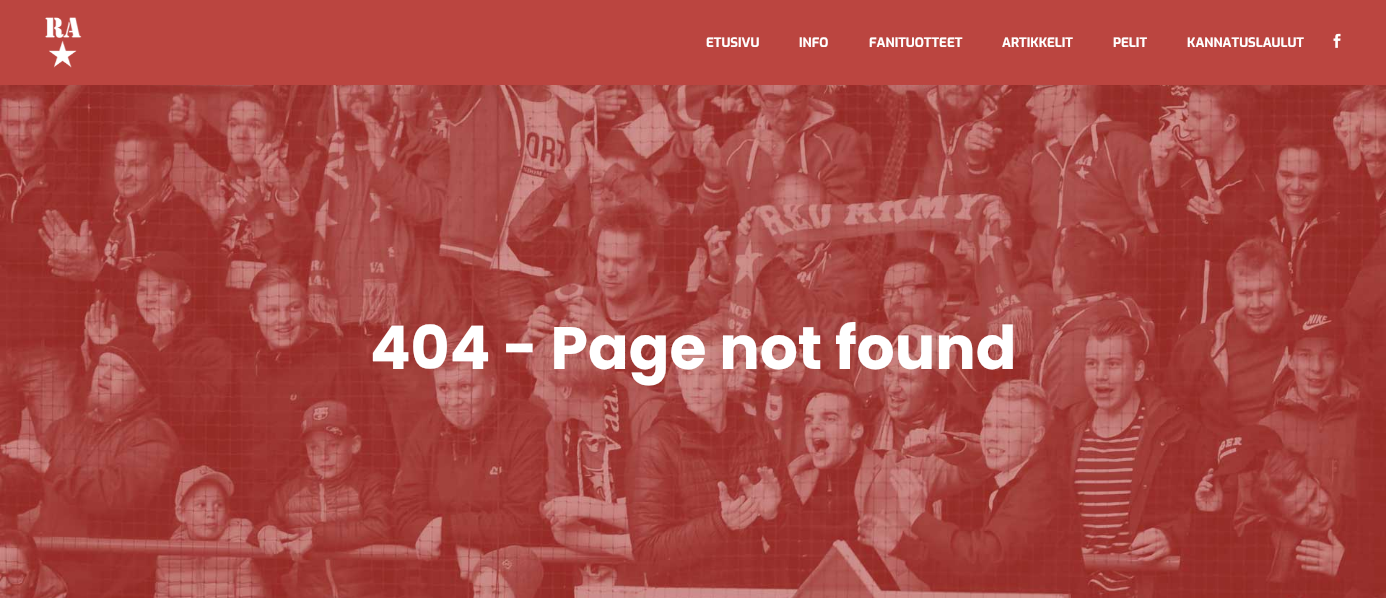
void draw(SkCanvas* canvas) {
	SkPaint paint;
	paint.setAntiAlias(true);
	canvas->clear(0xffffffff);
	paint.setColor(0xffbb4540);
	canvas->drawRect(SkRect::MakeXYWH(0, 0, 1386, 85), paint);
	canvas->drawImageRect(SkImages::DeferredFromEncodedData(SkData::MakeFromFileName("img1.png")), SkRect::MakeXYWH(45, 17, 37, 51), SkSamplingOptions());
	SkFont f1(fontMgr->matchFamilyStyle("Exo", SkFontStyle::Bold()), 13);
	f1.setSubpixel(true);
	paint.setColor(0xffffffff);
	canvas->drawString("ETUSIVU", 706, 47, f1, paint);
	canvas->drawString("INFO", 799, 47, f1, paint);
	canvas->drawString("FANITUOTTEET", 869, 47, f1, paint);
	canvas->drawString("ARTIKKELIT", 1002, 47, f1, paint);
	canvas->drawString("PELIT", 1113, 47, f1, paint);
	canvas->drawString("KANNATUSLAULUT", 1187, 47, f1, paint);
	canvas->drawImageRect(SkImages::DeferredFromEncodedData(SkData::MakeFromFileName("img2.png")), SkRect::MakeXYWH(1333, 33, 8, 15), SkSamplingOptions());
	canvas->drawImageRect(SkImages::DeferredFromEncodedData(SkData::MakeFromFileName("img3.png")), SkRect::MakeXYWH(0, 85, 1386, 513), SkSamplingOptions());
	SkFont f2(fontMgr->matchFamilyStyle("Poppins", SkFontStyle::Bold()), 60);
	f2.setSubpixel(true);
	canvas->drawString("404 - Page not found", 370, 369, f2, paint);
}
